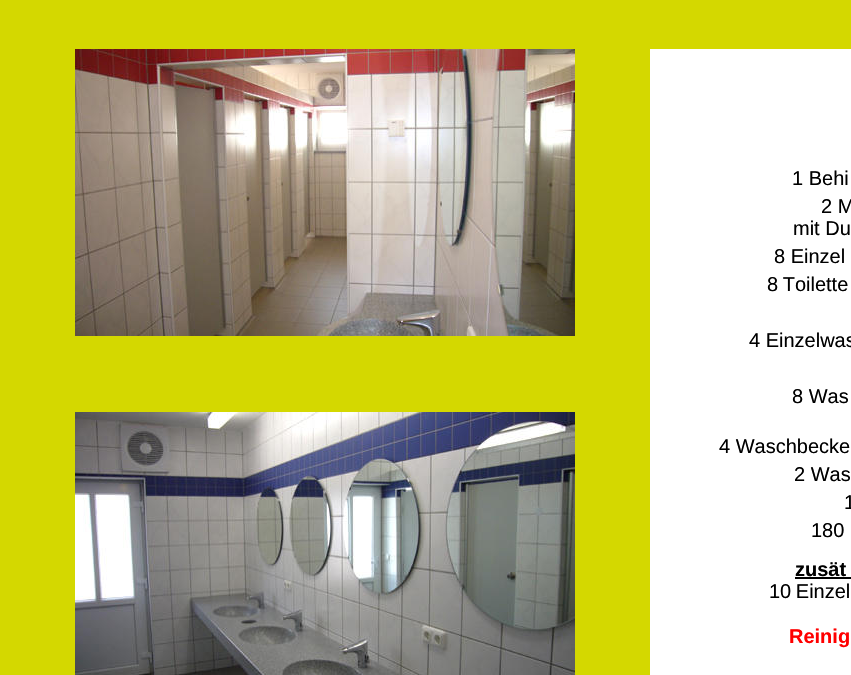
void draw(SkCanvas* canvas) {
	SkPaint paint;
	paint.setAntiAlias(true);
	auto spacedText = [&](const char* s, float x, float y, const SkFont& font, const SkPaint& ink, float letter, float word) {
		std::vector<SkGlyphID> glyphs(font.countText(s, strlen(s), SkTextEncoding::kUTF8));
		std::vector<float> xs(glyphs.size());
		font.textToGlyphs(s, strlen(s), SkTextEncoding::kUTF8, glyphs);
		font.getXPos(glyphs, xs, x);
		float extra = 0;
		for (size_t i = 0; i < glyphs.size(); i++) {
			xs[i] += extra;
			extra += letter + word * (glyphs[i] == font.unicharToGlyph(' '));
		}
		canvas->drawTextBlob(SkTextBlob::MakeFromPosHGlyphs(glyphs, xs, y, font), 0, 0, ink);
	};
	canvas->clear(0xffd4d800);
	canvas->drawImageRect(SkImages::DeferredFromEncodedData(SkData::MakeFromFileName("img1.png")), SkRect::MakeXYWH(75, 49, 500, 287), SkSamplingOptions());
	paint.setColor(0xffffffff);
	canvas->drawRect(SkRect::MakeXYWH(650, 49, 201, 626), paint);
	canvas->drawImageRect(SkImages::DeferredFromEncodedData(SkData::MakeFromFileName("img2.png")), SkRect::MakeXYWH(75, 412, 500, 263), SkSamplingOptions());
	SkFont f1(fontMgr->matchFamilyStyle("Liberation Sans", SkFontStyle::Normal()), 20);
	f1.setSubpixel(true);
	paint.setColor(0xff000000);
	canvas->drawString("1 Behi", 792, 185, f1, paint);
	canvas->drawString("2 M", 821, 213, f1, paint);
	canvas->drawString("mit Du", 793, 235, f1, paint);
	canvas->drawString("8 Einzel", 774, 263, f1, paint);
	spacedText("8 Toilette", 767, 291, f1, paint, 0, -1);
	canvas->drawString("4 Einzelwas", 749, 347, f1, paint);
	canvas->drawString("8 Was", 792, 403, f1, paint);
	canvas->drawString("4 Waschbecke", 719, 453, f1, paint);
	canvas->drawString("2 Was", 794, 481, f1, paint);
	canvas->drawString("1", 844, 509, f1, paint);
	canvas->drawString("180", 811, 537, f1, paint);
	SkFont f2(fontMgr->matchFamilyStyle("Liberation Sans", SkFontStyle::Bold()), 20);
	f2.setSubpixel(true);
	canvas->drawString("zusät", 795, 576, f2, paint);
	canvas->drawRect(SkRect::MakeXYWH(795, 577, 56, 2), paint);
	spacedText("10 Einzel", 769, 598, f1, paint, 0, -1);
	paint.setColor(0xffff0000);
	canvas->drawString("Reinig", 789, 643, f2, paint);
}
